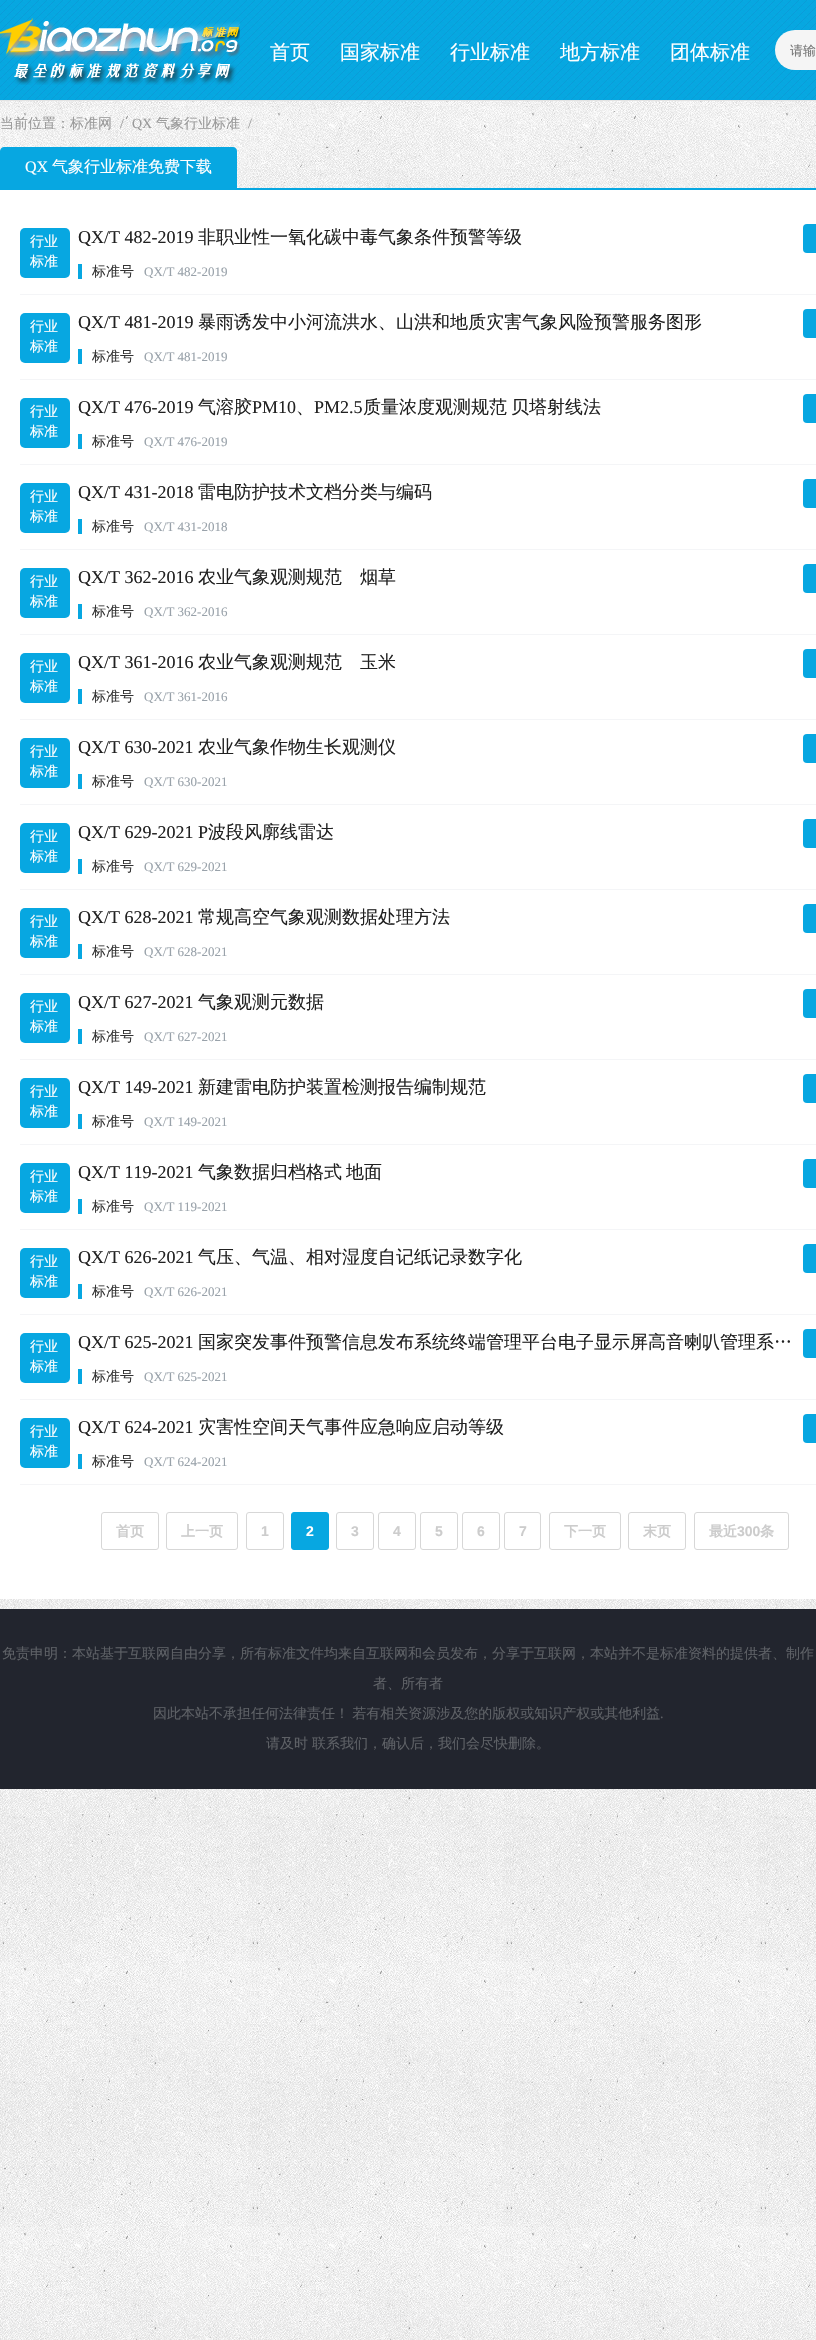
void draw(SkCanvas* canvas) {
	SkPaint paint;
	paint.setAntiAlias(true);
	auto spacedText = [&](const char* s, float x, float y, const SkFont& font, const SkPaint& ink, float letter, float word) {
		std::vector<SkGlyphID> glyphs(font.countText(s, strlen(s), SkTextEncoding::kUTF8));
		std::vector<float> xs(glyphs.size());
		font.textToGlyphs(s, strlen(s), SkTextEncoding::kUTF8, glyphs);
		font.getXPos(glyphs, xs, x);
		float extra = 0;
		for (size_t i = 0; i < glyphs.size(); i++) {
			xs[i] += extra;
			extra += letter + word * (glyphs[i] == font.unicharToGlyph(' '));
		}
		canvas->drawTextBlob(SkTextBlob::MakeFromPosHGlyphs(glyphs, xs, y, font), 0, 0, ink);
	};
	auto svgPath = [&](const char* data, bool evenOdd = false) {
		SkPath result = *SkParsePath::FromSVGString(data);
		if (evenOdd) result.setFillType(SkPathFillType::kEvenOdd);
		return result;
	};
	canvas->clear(0xffffffff);
	canvas->drawImageRect(SkImages::DeferredFromEncodedData(SkData::MakeFromFileName("img1.png")), SkRect::MakeXYWH(0, 101, 816, 2239), SkSamplingOptions());
	canvas->drawImageRect(SkImages::DeferredFromEncodedData(SkData::MakeFromFileName("img2.png")), SkRect::MakeXYWH(0, 0, 816, 100), SkSamplingOptions());
	paint.setColor(0xffe3e3e3);
	canvas->drawRect(SkRect::MakeXYWH(0, 100, 816, 1), paint);
	canvas->drawImageRect(SkImages::DeferredFromEncodedData(SkData::MakeFromFileName("img3.png")), SkRect::MakeXYWH(0, 18, 240, 67), SkSamplingOptions());
	SkFont f1(fontMgr->matchFamilyStyle("WenQuanYi Zen Hei", SkFontStyle(500, SkFontStyle::kNormal_Width, SkFontStyle::kUpright_Slant)), 20);
	f1.setSubpixel(true);
	paint.setColor(0xffffffff);
	canvas->drawString("首页", 270, 59, f1, paint);
	canvas->drawString("国家标准", 340, 59, f1, paint);
	canvas->drawString("行业标准", 450, 59, f1, paint);
	canvas->drawString("地方标准", 560, 59, f1, paint);
	canvas->drawString("团体标准", 670, 59, f1, paint);
	paint.setColor(0xfff5f5f5);
	canvas->drawRoundRect(SkRect::MakeXYWH(775, 30, 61, 40), 20, 20, paint);
	SkFont f2(fontMgr->matchFamilyStyle("WenQuanYi Zen Hei", SkFontStyle(500, SkFontStyle::kNormal_Width, SkFontStyle::kUpright_Slant)), 13);
	f2.setSubpixel(true);
	paint.setColor(0xff757575);
	canvas->drawString("请输", 790, 55, f2, paint);
	SkFont f3(fontMgr->matchFamilyStyle("WenQuanYi Zen Hei", SkFontStyle(500, SkFontStyle::kNormal_Width, SkFontStyle::kUpright_Slant)), 14);
	f3.setSubpixel(true);
	paint.setColor(0xff999999);
	canvas->drawString("当前位置：标准网", 0, 128, f3, paint);
	SkFont f4(fontMgr->matchFamilyStyle("Liberation Serif", SkFontStyle::Normal()), 14);
	f4.setSubpixel(true);
	canvas->drawString("/", 120, 128, f4, paint);
	canvas->drawString("QX", 132, 128, f4, paint);
	canvas->drawString("气象行业标准", 156, 128, f3, paint);
	canvas->drawString("/", 248, 128, f4, paint);
	paint.setColor(0xff07a7e1);
	canvas->drawPath(svgPath("M4 147H233C235 147 237 149 237 151V188H0V151C0 149 2 147 4 147Z"), paint);
	SkFont f5(fontMgr->matchFamilyStyle("Liberation Serif", SkFontStyle::Normal()), 16);
	f5.setSubpixel(true);
	paint.setColor(0xffffffff);
	canvas->drawString("QX", 25, 172, f5, paint);
	SkFont f6(fontMgr->matchFamilyStyle("WenQuanYi Zen Hei", SkFontStyle(500, SkFontStyle::kNormal_Width, SkFontStyle::kUpright_Slant)), 16);
	f6.setSubpixel(true);
	canvas->drawString("气象行业标准免费下载", 52, 172, f6, paint);
	canvas->drawRect(SkRect::MakeXYWH(0, 190, 816, 1409), paint);
	paint.setColor(0xff07a7e1);
	canvas->drawRect(SkRect::MakeXYWH(0, 188, 816, 2), paint);
	paint.setColor(0xfff4f5f7);
	canvas->drawRect(SkRect::MakeXYWH(20, 294, 796, 1), paint);
	paint.setColor(0xff07a7e1);
	canvas->drawRoundRect(SkRect::MakeXYWH(20, 228, 50, 50), 5, 5, paint);
	paint.setColor(0xffffffff);
	canvas->drawString("行业", 30, 246, f3, paint);
	canvas->drawString("标准", 30, 266, f3, paint);
	SkFont f7(fontMgr->matchFamilyStyle("Liberation Serif", SkFontStyle::Normal()), 18);
	f7.setSubpixel(true);
	paint.setColor(0xff212121);
	canvas->drawString("QX/T 482-2019", 78, 243, f7, paint);
	SkFont f8(fontMgr->matchFamilyStyle("WenQuanYi Zen Hei", SkFontStyle(500, SkFontStyle::kNormal_Width, SkFontStyle::kUpright_Slant)), 18);
	f8.setSubpixel(true);
	canvas->drawString("非职业性一氧化碳中毒气象条件预警等级", 198, 243, f8, paint);
	paint.setColor(0xff333333);
	canvas->drawString("标准号", 92, 276, f3, paint);
	paint.setColor(0xff07a7e1);
	canvas->drawRect(SkRect::MakeXYWH(78, 264, 4, 15), paint);
	SkFont f9(fontMgr->matchFamilyStyle("Liberation Serif", SkFontStyle::Normal()), 13);
	f9.setSubpixel(true);
	paint.setColor(0xff99a2aa);
	canvas->drawString("QX/T 482-2019", 144, 276, f9, paint);
	paint.setColor(0xff07a7e1);
	canvas->drawRoundRect(SkRect::MakeXYWH(803, 224, 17, 29), 4, 4, paint);
	paint.setColor(0xfff4f5f7);
	canvas->drawRect(SkRect::MakeXYWH(20, 379, 796, 1), paint);
	paint.setColor(0xff07a7e1);
	canvas->drawRoundRect(SkRect::MakeXYWH(20, 313, 50, 50), 5, 5, paint);
	paint.setColor(0xffffffff);
	canvas->drawString("行业", 30, 331, f3, paint);
	canvas->drawString("标准", 30, 351, f3, paint);
	paint.setColor(0xff212121);
	canvas->drawString("QX/T 481-2019", 78, 328, f7, paint);
	canvas->drawString("暴雨诱发中小河流洪水、山洪和地质灾害气象风险预警服务图形", 198, 328, f8, paint);
	paint.setColor(0xff333333);
	canvas->drawString("标准号", 92, 361, f3, paint);
	paint.setColor(0xff07a7e1);
	canvas->drawRect(SkRect::MakeXYWH(78, 349, 4, 15), paint);
	paint.setColor(0xff99a2aa);
	canvas->drawString("QX/T 481-2019", 144, 361, f9, paint);
	paint.setColor(0xff07a7e1);
	canvas->drawRoundRect(SkRect::MakeXYWH(803, 309, 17, 29), 4, 4, paint);
	paint.setColor(0xfff4f5f7);
	canvas->drawRect(SkRect::MakeXYWH(20, 464, 796, 1), paint);
	paint.setColor(0xff07a7e1);
	canvas->drawRoundRect(SkRect::MakeXYWH(20, 398, 50, 50), 5, 5, paint);
	paint.setColor(0xffffffff);
	canvas->drawString("行业", 30, 416, f3, paint);
	canvas->drawString("标准", 30, 436, f3, paint);
	paint.setColor(0xff212121);
	canvas->drawString("QX/T 476-2019", 78, 413, f7, paint);
	canvas->drawString("气溶胶", 198, 413, f8, paint);
	canvas->drawString("PM10", 252, 413, f7, paint);
	canvas->drawString("、", 296, 413, f8, paint);
	canvas->drawString("PM2.5", 314, 413, f7, paint);
	canvas->drawString("质量浓度观测规范", 363, 413, f8, paint);
	canvas->drawString("贝塔射线法", 511, 413, f8, paint);
	paint.setColor(0xff333333);
	canvas->drawString("标准号", 92, 446, f3, paint);
	paint.setColor(0xff07a7e1);
	canvas->drawRect(SkRect::MakeXYWH(78, 434, 4, 15), paint);
	paint.setColor(0xff99a2aa);
	canvas->drawString("QX/T 476-2019", 144, 446, f9, paint);
	paint.setColor(0xff07a7e1);
	canvas->drawRoundRect(SkRect::MakeXYWH(803, 394, 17, 29), 4, 4, paint);
	paint.setColor(0xfff4f5f7);
	canvas->drawRect(SkRect::MakeXYWH(20, 549, 796, 1), paint);
	paint.setColor(0xff07a7e1);
	canvas->drawRoundRect(SkRect::MakeXYWH(20, 483, 50, 50), 5, 5, paint);
	paint.setColor(0xffffffff);
	canvas->drawString("行业", 30, 501, f3, paint);
	canvas->drawString("标准", 30, 521, f3, paint);
	paint.setColor(0xff212121);
	canvas->drawString("QX/T 431-2018", 78, 498, f7, paint);
	canvas->drawString("雷电防护技术文档分类与编码", 198, 498, f8, paint);
	paint.setColor(0xff333333);
	canvas->drawString("标准号", 92, 531, f3, paint);
	paint.setColor(0xff07a7e1);
	canvas->drawRect(SkRect::MakeXYWH(78, 519, 4, 15), paint);
	paint.setColor(0xff99a2aa);
	canvas->drawString("QX/T 431-2018", 144, 531, f9, paint);
	paint.setColor(0xff07a7e1);
	canvas->drawRoundRect(SkRect::MakeXYWH(803, 479, 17, 29), 4, 4, paint);
	paint.setColor(0xfff4f5f7);
	canvas->drawRect(SkRect::MakeXYWH(20, 634, 796, 1), paint);
	paint.setColor(0xff07a7e1);
	canvas->drawRoundRect(SkRect::MakeXYWH(20, 568, 50, 50), 5, 5, paint);
	paint.setColor(0xffffffff);
	canvas->drawString("行业", 30, 586, f3, paint);
	canvas->drawString("标准", 30, 606, f3, paint);
	paint.setColor(0xff212121);
	canvas->drawString("QX/T 362-2016", 78, 583, f7, paint);
	canvas->drawString("农业气象观测规范　烟草", 198, 583, f8, paint);
	paint.setColor(0xff333333);
	canvas->drawString("标准号", 92, 616, f3, paint);
	paint.setColor(0xff07a7e1);
	canvas->drawRect(SkRect::MakeXYWH(78, 604, 4, 15), paint);
	paint.setColor(0xff99a2aa);
	canvas->drawString("QX/T 362-2016", 144, 616, f9, paint);
	paint.setColor(0xff07a7e1);
	canvas->drawRoundRect(SkRect::MakeXYWH(803, 564, 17, 29), 4, 4, paint);
	paint.setColor(0xfff4f5f7);
	canvas->drawRect(SkRect::MakeXYWH(20, 719, 796, 1), paint);
	paint.setColor(0xff07a7e1);
	canvas->drawRoundRect(SkRect::MakeXYWH(20, 653, 50, 50), 5, 5, paint);
	paint.setColor(0xffffffff);
	canvas->drawString("行业", 30, 671, f3, paint);
	canvas->drawString("标准", 30, 691, f3, paint);
	paint.setColor(0xff212121);
	canvas->drawString("QX/T 361-2016", 78, 668, f7, paint);
	canvas->drawString("农业气象观测规范　玉米", 198, 668, f8, paint);
	paint.setColor(0xff333333);
	canvas->drawString("标准号", 92, 701, f3, paint);
	paint.setColor(0xff07a7e1);
	canvas->drawRect(SkRect::MakeXYWH(78, 689, 4, 15), paint);
	paint.setColor(0xff99a2aa);
	canvas->drawString("QX/T 361-2016", 144, 701, f9, paint);
	paint.setColor(0xff07a7e1);
	canvas->drawRoundRect(SkRect::MakeXYWH(803, 649, 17, 29), 4, 4, paint);
	paint.setColor(0xfff4f5f7);
	canvas->drawRect(SkRect::MakeXYWH(20, 804, 796, 1), paint);
	paint.setColor(0xff07a7e1);
	canvas->drawRoundRect(SkRect::MakeXYWH(20, 738, 50, 50), 5, 5, paint);
	paint.setColor(0xffffffff);
	canvas->drawString("行业", 30, 756, f3, paint);
	canvas->drawString("标准", 30, 776, f3, paint);
	paint.setColor(0xff212121);
	canvas->drawString("QX/T 630-2021", 78, 753, f7, paint);
	canvas->drawString("农业气象作物生长观测仪", 198, 753, f8, paint);
	paint.setColor(0xff333333);
	canvas->drawString("标准号", 92, 786, f3, paint);
	paint.setColor(0xff07a7e1);
	canvas->drawRect(SkRect::MakeXYWH(78, 774, 4, 15), paint);
	paint.setColor(0xff99a2aa);
	canvas->drawString("QX/T 630-2021", 144, 786, f9, paint);
	paint.setColor(0xff07a7e1);
	canvas->drawRoundRect(SkRect::MakeXYWH(803, 734, 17, 29), 4, 4, paint);
	paint.setColor(0xfff4f5f7);
	canvas->drawRect(SkRect::MakeXYWH(20, 889, 796, 1), paint);
	paint.setColor(0xff07a7e1);
	canvas->drawRoundRect(SkRect::MakeXYWH(20, 823, 50, 50), 5, 5, paint);
	paint.setColor(0xffffffff);
	canvas->drawString("行业", 30, 841, f3, paint);
	canvas->drawString("标准", 30, 861, f3, paint);
	paint.setColor(0xff212121);
	canvas->drawString("QX/T 629-2021 P", 78, 838, f7, paint);
	canvas->drawString("波段风廓线雷达", 208, 838, f8, paint);
	paint.setColor(0xff333333);
	canvas->drawString("标准号", 92, 871, f3, paint);
	paint.setColor(0xff07a7e1);
	canvas->drawRect(SkRect::MakeXYWH(78, 859, 4, 15), paint);
	paint.setColor(0xff99a2aa);
	canvas->drawString("QX/T 629-2021", 144, 871, f9, paint);
	paint.setColor(0xff07a7e1);
	canvas->drawRoundRect(SkRect::MakeXYWH(803, 819, 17, 29), 4, 4, paint);
	paint.setColor(0xfff4f5f7);
	canvas->drawRect(SkRect::MakeXYWH(20, 974, 796, 1), paint);
	paint.setColor(0xff07a7e1);
	canvas->drawRoundRect(SkRect::MakeXYWH(20, 908, 50, 50), 5, 5, paint);
	paint.setColor(0xffffffff);
	canvas->drawString("行业", 30, 926, f3, paint);
	canvas->drawString("标准", 30, 946, f3, paint);
	paint.setColor(0xff212121);
	canvas->drawString("QX/T 628-2021", 78, 923, f7, paint);
	canvas->drawString("常规高空气象观测数据处理方法", 198, 923, f8, paint);
	paint.setColor(0xff333333);
	canvas->drawString("标准号", 92, 956, f3, paint);
	paint.setColor(0xff07a7e1);
	canvas->drawRect(SkRect::MakeXYWH(78, 944, 4, 15), paint);
	paint.setColor(0xff99a2aa);
	canvas->drawString("QX/T 628-2021", 144, 956, f9, paint);
	paint.setColor(0xff07a7e1);
	canvas->drawRoundRect(SkRect::MakeXYWH(803, 904, 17, 29), 4, 4, paint);
	paint.setColor(0xfff4f5f7);
	canvas->drawRect(SkRect::MakeXYWH(20, 1059, 796, 1), paint);
	paint.setColor(0xff07a7e1);
	canvas->drawRoundRect(SkRect::MakeXYWH(20, 993, 50, 50), 5, 5, paint);
	paint.setColor(0xffffffff);
	canvas->drawString("行业", 30, 1011, f3, paint);
	canvas->drawString("标准", 30, 1031, f3, paint);
	paint.setColor(0xff212121);
	canvas->drawString("QX/T 627-2021", 78, 1008, f7, paint);
	canvas->drawString("气象观测元数据", 198, 1008, f8, paint);
	paint.setColor(0xff333333);
	canvas->drawString("标准号", 92, 1041, f3, paint);
	paint.setColor(0xff07a7e1);
	canvas->drawRect(SkRect::MakeXYWH(78, 1029, 4, 15), paint);
	paint.setColor(0xff99a2aa);
	canvas->drawString("QX/T 627-2021", 144, 1041, f9, paint);
	paint.setColor(0xff07a7e1);
	canvas->drawRoundRect(SkRect::MakeXYWH(803, 989, 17, 29), 4, 4, paint);
	paint.setColor(0xfff4f5f7);
	canvas->drawRect(SkRect::MakeXYWH(20, 1144, 796, 1), paint);
	paint.setColor(0xff07a7e1);
	canvas->drawRoundRect(SkRect::MakeXYWH(20, 1078, 50, 50), 5, 5, paint);
	paint.setColor(0xffffffff);
	canvas->drawString("行业", 30, 1096, f3, paint);
	canvas->drawString("标准", 30, 1116, f3, paint);
	paint.setColor(0xff212121);
	canvas->drawString("QX/T 149-2021", 78, 1093, f7, paint);
	canvas->drawString("新建雷电防护装置检测报告编制规范", 198, 1093, f8, paint);
	paint.setColor(0xff333333);
	canvas->drawString("标准号", 92, 1126, f3, paint);
	paint.setColor(0xff07a7e1);
	canvas->drawRect(SkRect::MakeXYWH(78, 1114, 4, 15), paint);
	paint.setColor(0xff99a2aa);
	canvas->drawString("QX/T 149-2021", 144, 1126, f9, paint);
	paint.setColor(0xff07a7e1);
	canvas->drawRoundRect(SkRect::MakeXYWH(803, 1074, 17, 29), 4, 4, paint);
	paint.setColor(0xfff4f5f7);
	canvas->drawRect(SkRect::MakeXYWH(20, 1229, 796, 1), paint);
	paint.setColor(0xff07a7e1);
	canvas->drawRoundRect(SkRect::MakeXYWH(20, 1163, 50, 50), 5, 5, paint);
	paint.setColor(0xffffffff);
	canvas->drawString("行业", 30, 1181, f3, paint);
	canvas->drawString("标准", 30, 1201, f3, paint);
	paint.setColor(0xff212121);
	canvas->drawString("QX/T 119-2021", 78, 1178, f7, paint);
	canvas->drawString("气象数据归档格式", 198, 1178, f8, paint);
	canvas->drawString("地面", 346, 1178, f8, paint);
	paint.setColor(0xff333333);
	canvas->drawString("标准号", 92, 1211, f3, paint);
	paint.setColor(0xff07a7e1);
	canvas->drawRect(SkRect::MakeXYWH(78, 1199, 4, 15), paint);
	paint.setColor(0xff99a2aa);
	canvas->drawString("QX/T 119-2021", 144, 1211, f9, paint);
	paint.setColor(0xff07a7e1);
	canvas->drawRoundRect(SkRect::MakeXYWH(803, 1159, 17, 29), 4, 4, paint);
	paint.setColor(0xfff4f5f7);
	canvas->drawRect(SkRect::MakeXYWH(20, 1314, 796, 1), paint);
	paint.setColor(0xff07a7e1);
	canvas->drawRoundRect(SkRect::MakeXYWH(20, 1248, 50, 50), 5, 5, paint);
	paint.setColor(0xffffffff);
	canvas->drawString("行业", 30, 1266, f3, paint);
	canvas->drawString("标准", 30, 1286, f3, paint);
	paint.setColor(0xff212121);
	canvas->drawString("QX/T 626-2021", 78, 1263, f7, paint);
	canvas->drawString("气压、气温、相对湿度自记纸记录数字化", 198, 1263, f8, paint);
	paint.setColor(0xff333333);
	canvas->drawString("标准号", 92, 1296, f3, paint);
	paint.setColor(0xff07a7e1);
	canvas->drawRect(SkRect::MakeXYWH(78, 1284, 4, 15), paint);
	paint.setColor(0xff99a2aa);
	canvas->drawString("QX/T 626-2021", 144, 1296, f9, paint);
	paint.setColor(0xff07a7e1);
	canvas->drawRoundRect(SkRect::MakeXYWH(803, 1244, 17, 29), 4, 4, paint);
	paint.setColor(0xfff4f5f7);
	canvas->drawRect(SkRect::MakeXYWH(20, 1399, 796, 1), paint);
	paint.setColor(0xff07a7e1);
	canvas->drawRoundRect(SkRect::MakeXYWH(20, 1333, 50, 50), 5, 5, paint);
	paint.setColor(0xffffffff);
	canvas->drawString("行业", 30, 1351, f3, paint);
	canvas->drawString("标准", 30, 1371, f3, paint);
	paint.setColor(0xff212121);
	canvas->drawString("QX/T 625-2021", 78, 1348, f7, paint);
	canvas->drawString("国家突发事件预警信息发布系统终端管理平台电子显示屏高音喇叭管理系…", 198, 1348, f8, paint);
	paint.setColor(0xff333333);
	canvas->drawString("标准号", 92, 1381, f3, paint);
	paint.setColor(0xff07a7e1);
	canvas->drawRect(SkRect::MakeXYWH(78, 1369, 4, 15), paint);
	paint.setColor(0xff99a2aa);
	canvas->drawString("QX/T 625-2021", 144, 1381, f9, paint);
	paint.setColor(0xff07a7e1);
	canvas->drawRoundRect(SkRect::MakeXYWH(803, 1329, 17, 29), 4, 4, paint);
	paint.setColor(0xfff4f5f7);
	canvas->drawRect(SkRect::MakeXYWH(20, 1484, 796, 1), paint);
	paint.setColor(0xff07a7e1);
	canvas->drawRoundRect(SkRect::MakeXYWH(20, 1418, 50, 50), 5, 5, paint);
	paint.setColor(0xffffffff);
	canvas->drawString("行业", 30, 1436, f3, paint);
	canvas->drawString("标准", 30, 1456, f3, paint);
	paint.setColor(0xff212121);
	canvas->drawString("QX/T 624-2021", 78, 1433, f7, paint);
	canvas->drawString("灾害性空间天气事件应急响应启动等级", 198, 1433, f8, paint);
	paint.setColor(0xff333333);
	canvas->drawString("标准号", 92, 1466, f3, paint);
	paint.setColor(0xff07a7e1);
	canvas->drawRect(SkRect::MakeXYWH(78, 1454, 4, 15), paint);
	paint.setColor(0xff99a2aa);
	canvas->drawString("QX/T 624-2021", 144, 1466, f9, paint);
	paint.setColor(0xff07a7e1);
	canvas->drawRoundRect(SkRect::MakeXYWH(803, 1414, 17, 29), 4, 4, paint);
	paint.setStroke(true);
	paint.setStrokeWidth(1);
	paint.setColor(0xffd7d7d7);
	canvas->drawRoundRect(SkRect::MakeXYWH(101.5, 1512.5, 57, 37), 2.5, 2.5, paint);
	SkFont f10(fontMgr->matchFamilyStyle("WenQuanYi Zen Hei", SkFontStyle::Bold()), 14);
	f10.setSubpixel(true);
	paint.setStroke(false);
	paint.setColor(0xffcccccc);
	canvas->drawString("首页", 116, 1536, f10, paint);
	paint.setStroke(true);
	paint.setColor(0xffd7d7d7);
	canvas->drawRoundRect(SkRect::MakeXYWH(166.5, 1512.5, 71, 37), 2.5, 2.5, paint);
	paint.setStroke(false);
	paint.setColor(0xffcccccc);
	canvas->drawString("上一页", 181, 1536, f10, paint);
	paint.setStroke(true);
	paint.setColor(0xffd7d7d7);
	canvas->drawRoundRect(SkRect::MakeXYWH(246.5, 1512.5, 37, 37), 2.5, 2.5, paint);
	SkFont f11(fontMgr->matchFamilyStyle("Liberation Sans", SkFontStyle::Bold()), 14);
	f11.setSubpixel(true);
	paint.setStroke(false);
	paint.setColor(0xffcccccc);
	canvas->drawString("1", 261, 1536, f11, paint);
	paint.setColor(0xff07a7e1);
	canvas->drawRoundRect(SkRect::MakeXYWH(291.5, 1512.5, 37, 37), 2.5, 2.5, paint);
	paint.setStroke(true);
	canvas->drawRoundRect(SkRect::MakeXYWH(291.5, 1512.5, 37, 37), 2.5, 2.5, paint);
	paint.setStroke(false);
	paint.setColor(0xffffffff);
	canvas->drawString("2", 306, 1536, f11, paint);
	paint.setStroke(true);
	paint.setColor(0xffd7d7d7);
	canvas->drawRoundRect(SkRect::MakeXYWH(336.5, 1512.5, 37, 37), 2.5, 2.5, paint);
	paint.setStroke(false);
	paint.setColor(0xffcccccc);
	canvas->drawString("3", 351, 1536, f11, paint);
	paint.setStroke(true);
	paint.setColor(0xffd7d7d7);
	canvas->drawRoundRect(SkRect::MakeXYWH(378.5, 1512.5, 37, 37), 2.5, 2.5, paint);
	paint.setStroke(false);
	paint.setColor(0xffcccccc);
	canvas->drawString("4", 393, 1536, f11, paint);
	paint.setStroke(true);
	paint.setColor(0xffd7d7d7);
	canvas->drawRoundRect(SkRect::MakeXYWH(420.5, 1512.5, 37, 37), 2.5, 2.5, paint);
	paint.setStroke(false);
	paint.setColor(0xffcccccc);
	canvas->drawString("5", 435, 1536, f11, paint);
	paint.setStroke(true);
	paint.setColor(0xffd7d7d7);
	canvas->drawRoundRect(SkRect::MakeXYWH(462.5, 1512.5, 37, 37), 2.5, 2.5, paint);
	paint.setStroke(false);
	paint.setColor(0xffcccccc);
	canvas->drawString("6", 477, 1536, f11, paint);
	paint.setStroke(true);
	paint.setColor(0xffd7d7d7);
	canvas->drawRoundRect(SkRect::MakeXYWH(504.5, 1512.5, 36, 37), 2.5, 2.5, paint);
	paint.setStroke(false);
	paint.setColor(0xffcccccc);
	canvas->drawString("7", 519, 1536, f11, paint);
	paint.setStroke(true);
	paint.setColor(0xffd7d7d7);
	canvas->drawRoundRect(SkRect::MakeXYWH(549.5, 1512.5, 71, 37), 2.5, 2.5, paint);
	paint.setStroke(false);
	paint.setColor(0xffcccccc);
	canvas->drawString("下一页", 564, 1536, f10, paint);
	paint.setStroke(true);
	paint.setColor(0xffd7d7d7);
	canvas->drawRoundRect(SkRect::MakeXYWH(628.5, 1512.5, 57, 37), 2.5, 2.5, paint);
	paint.setStroke(false);
	paint.setColor(0xffcccccc);
	canvas->drawString("末页", 643, 1536, f10, paint);
	paint.setStroke(true);
	paint.setColor(0xffd7d7d7);
	canvas->drawRoundRect(SkRect::MakeXYWH(694.5, 1512.5, 94, 37), 2.5, 2.5, paint);
	paint.setStroke(false);
	paint.setColor(0xffcccccc);
	canvas->drawString("最近", 709, 1536, f10, paint);
	canvas->drawString("300", 737, 1536, f11, paint);
	canvas->drawString("条", 760, 1536, f10, paint);
	paint.setColor(0xff22252e);
	canvas->drawRect(SkRect::MakeXYWH(0, 1609, 816, 180), paint);
	paint.setColor(0xff5e6166);
	canvas->drawString("免责申明：本站基于互联网自由分享，所有标准文件均来自互联网和会员发布，分享于互联网，本站并不是标准资料的提供者、制作", 2, 1658, f3, paint);
	canvas->drawString("者、所有者", 373, 1688, f3, paint);
	spacedText("因此本站不承担任何法律责任！ 若有相关资源涉及您的版权或知识产权或其他利益", 153, 1718, f3, paint, 0, -1);
	canvas->drawString(".", 660, 1718, f4, paint);
	canvas->drawString("请及时", 266, 1748, f3, paint);
	canvas->drawString("联系我们，确认后，我们会尽快删除。", 312, 1748, f3, paint);
}
